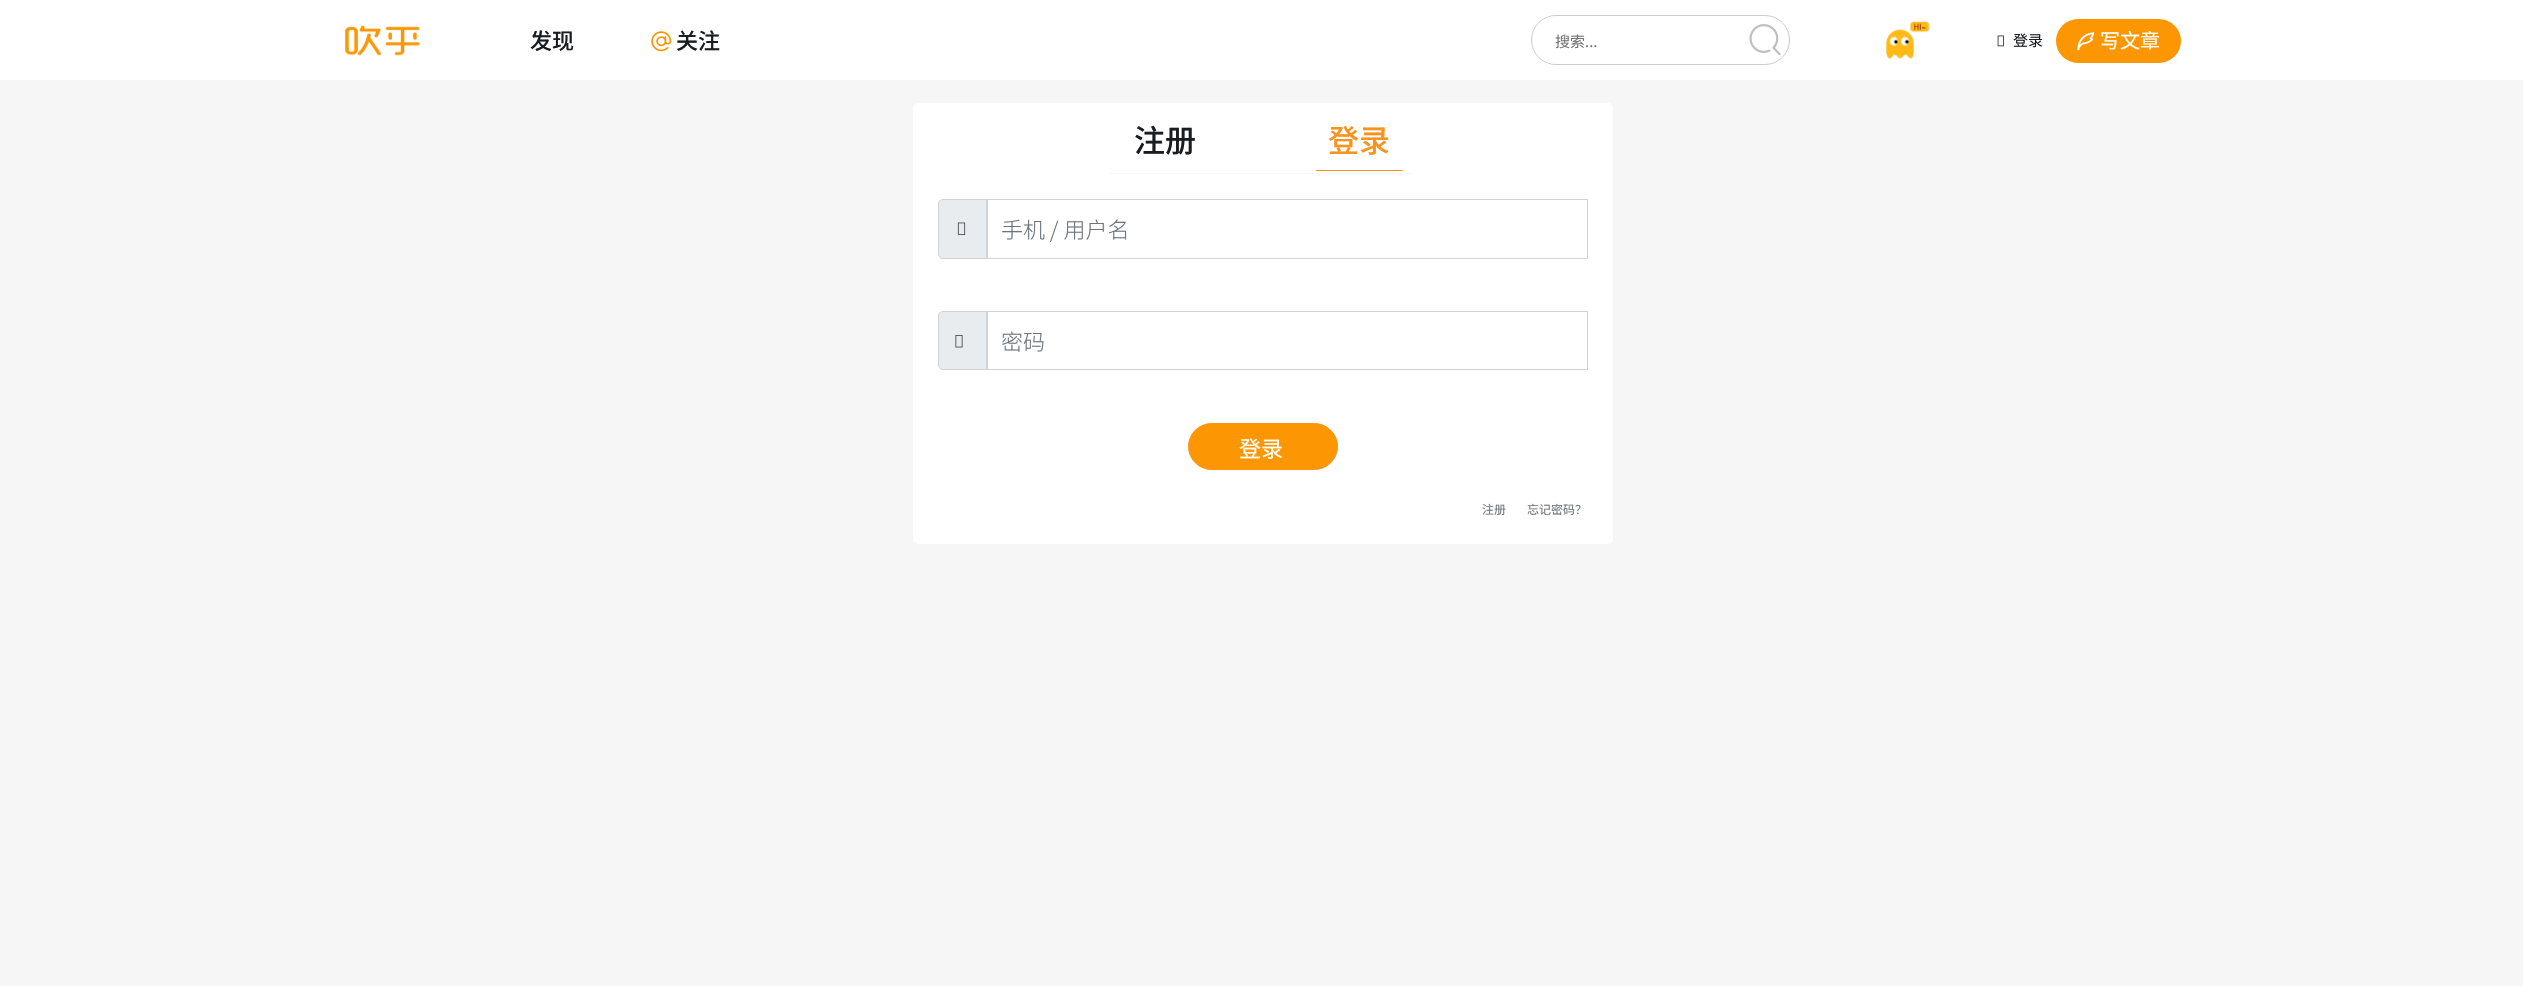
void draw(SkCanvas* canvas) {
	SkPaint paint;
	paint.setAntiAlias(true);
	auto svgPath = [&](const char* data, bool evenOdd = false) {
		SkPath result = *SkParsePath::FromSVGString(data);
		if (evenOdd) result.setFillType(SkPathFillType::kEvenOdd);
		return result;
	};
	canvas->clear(0xfff6f6f6);
	paint.setColor(0xffffffff);
	canvas->drawRect(SkRect::MakeXYWH(0, 0, 2523, 80), paint);
	canvas->drawImageRect(SkImages::DeferredFromEncodedData(SkData::MakeFromFileName("img1.png")), SkRect::MakeXYWH(345, 25, 75, 31), SkSamplingOptions());
	SkFont f1(fontMgr->matchFamilyStyle("Noto Sans CJK SC", SkFontStyle(500, SkFontStyle::kNormal_Width, SkFontStyle::kUpright_Slant)), 22);
	f1.setSubpixel(true);
	paint.setColor(0xff1a1d20);
	canvas->drawString("发现", 530, 49, f1, paint);
	canvas->drawImageRect(SkImages::DeferredFromEncodedData(SkData::MakeFromFileName("img2.png")), SkRect::MakeXYWH(651, 31, 21, 21), SkSamplingOptions());
	canvas->drawString("关注", 676, 49, f1, paint);
	paint.setStroke(true);
	paint.setStrokeWidth(1);
	paint.setColor(0xffcccccc);
	canvas->drawRoundRect(SkRect::MakeXYWH(1531.5, 15.5, 258, 49), 24.5, 24.5, paint);
	paint.setStroke(false);
	paint.setColor(0xffffffff);
	canvas->drawRoundRect(SkRect::MakeXYWH(1533, 16, 212, 48), 24, 24, paint);
	SkFont f2(fontMgr->matchFamilyStyle("Noto Sans CJK SC", SkFontStyle::Normal()), 15);
	f2.setSubpixel(true);
	paint.setColor(0xff757575);
	canvas->drawString("搜索...", 1555, 47, f2, paint);
	canvas->drawImageRect(SkImages::DeferredFromEncodedData(SkData::MakeFromFileName("img3.png")), SkRect::MakeXYWH(1749, 24, 32, 32), SkSamplingOptions());
	canvas->drawImageRect(SkImages::DeferredFromEncodedData(SkData::MakeFromFileName("img4.png")), SkRect::MakeXYWH(1886, 21, 44, 38), SkSamplingOptions());
	canvas->drawImageRect(SkImages::DeferredFromEncodedData(SkData::MakeFromFileName("img5.png")), SkRect::MakeXYWH(1997, 35, 7, 12), SkSamplingOptions());
	paint.setColor(0xff1a1d20);
	canvas->drawString("登录", 2013, 46, f2, paint);
	paint.setColor(0xfffc9603);
	canvas->drawRoundRect(SkRect::MakeXYWH(2056, 19, 125, 44), 22, 22, paint);
	canvas->drawImageRect(SkImages::DeferredFromEncodedData(SkData::MakeFromFileName("img6.png")), SkRect::MakeXYWH(2077, 32, 18, 19), SkSamplingOptions());
	SkFont f3(fontMgr->matchFamilyStyle("Noto Sans CJK SC", SkFontStyle::Normal()), 20);
	f3.setSubpixel(true);
	paint.setColor(0xffffffff);
	canvas->drawString("写文章", 2100, 48, f3, paint);
	canvas->drawRoundRect(SkRect::MakeXYWH(913, 103, 700, 441), 5, 5, paint);
	paint.setColor(0xfff7f7f7);
	canvas->drawRect(SkRect::MakeXYWH(1110, 173, 304, 1), paint);
	SkFont f4(fontMgr->matchFamilyStyle("Noto Sans CJK SC", SkFontStyle(500, SkFontStyle::kNormal_Width, SkFontStyle::kUpright_Slant)), 31);
	f4.setSubpixel(true);
	paint.setColor(0xff1a1d20);
	canvas->drawString("注册", 1134, 152, f4, paint);
	paint.setColor(0xfff7931e);
	canvas->drawPath(svgPath("M1404 171H1315L1316 170H1402Z"), paint);
	paint.setColor(0xffffffff);
	canvas->drawPath(svgPath("M1315 123V171L1316 170V123L1317 121L1316 120Z"), paint);
	paint.setColor(0xfff7931e);
	canvas->drawString("登录", 1328, 152, f4, paint);
	paint.setColor(0xffe9ecef);
	canvas->drawPath(svgPath("M943 199.5H987.5V258.5H943C940.5 258.5 938.5 256.5 938.5 254V204C938.5 201.5 940.5 199.5 943 199.5Z"), paint);
	paint.setStroke(true);
	paint.setColor(0xffced4da);
	canvas->drawPath(svgPath("M943 199.5H987.5V258.5H943C940.5 258.5 938.5 256.5 938.5 254V204C938.5 201.5 940.5 199.5 943 199.5Z"), paint);
	canvas->drawImageRect(SkImages::DeferredFromEncodedData(SkData::MakeFromFileName("img7.png")), SkRect::MakeXYWH(957, 222, 9, 13), SkSamplingOptions());
	canvas->drawRect(SkRect::MakeXYWH(986.5, 199.5, 601, 59), paint);
	SkFont f5(fontMgr->matchFamilyStyle("Noto Sans CJK SC", SkFontStyle(300, SkFontStyle::kNormal_Width, SkFontStyle::kUpright_Slant)), 22);
	f5.setSubpixel(true);
	paint.setStroke(false);
	paint.setColor(0xff6c757d);
	canvas->drawString("手机 / 用户名", 1001, 238, f5, paint);
	paint.setColor(0xffe9ecef);
	canvas->drawPath(svgPath("M943 311.5H987.5V369.5H943C940.5 369.5 938.5 367.5 938.5 365V316C938.5 313.5 940.5 311.5 943 311.5Z"), paint);
	paint.setStroke(true);
	paint.setColor(0xffced4da);
	canvas->drawPath(svgPath("M943 311.5H987.5V369.5H943C940.5 369.5 938.5 367.5 938.5 365V316C938.5 313.5 940.5 311.5 943 311.5Z"), paint);
	canvas->drawImageRect(SkImages::DeferredFromEncodedData(SkData::MakeFromFileName("img8.png")), SkRect::MakeXYWH(955, 335, 8, 13), SkSamplingOptions());
	canvas->drawRect(SkRect::MakeXYWH(986.5, 311.5, 601, 58), paint);
	paint.setStroke(false);
	paint.setColor(0xff6c757d);
	canvas->drawString("密码", 1001, 350, f5, paint);
	paint.setColor(0xfffc9603);
	canvas->drawRoundRect(SkRect::MakeXYWH(1188.5, 423.5, 149, 46), 23, 23, paint);
	paint.setStroke(true);
	paint.setColor(0xfff7931e);
	canvas->drawRoundRect(SkRect::MakeXYWH(1188.5, 423.5, 149, 46), 23, 23, paint);
	SkFont f6(fontMgr->matchFamilyStyle("Noto Sans CJK SC", SkFontStyle::Normal()), 22);
	f6.setSubpixel(true);
	paint.setStroke(false);
	paint.setColor(0xffffffff);
	canvas->drawString("登录", 1239, 457, f6, paint);
	SkFont f7(fontMgr->matchFamilyStyle("Noto Sans CJK SC", SkFontStyle::Normal()), 12);
	f7.setSubpixel(true);
	paint.setColor(0xff6c757d);
	canvas->drawString("注册", 1482, 514, f7, paint);
	canvas->drawString("忘记密码？", 1527, 514, f7, paint);
}
